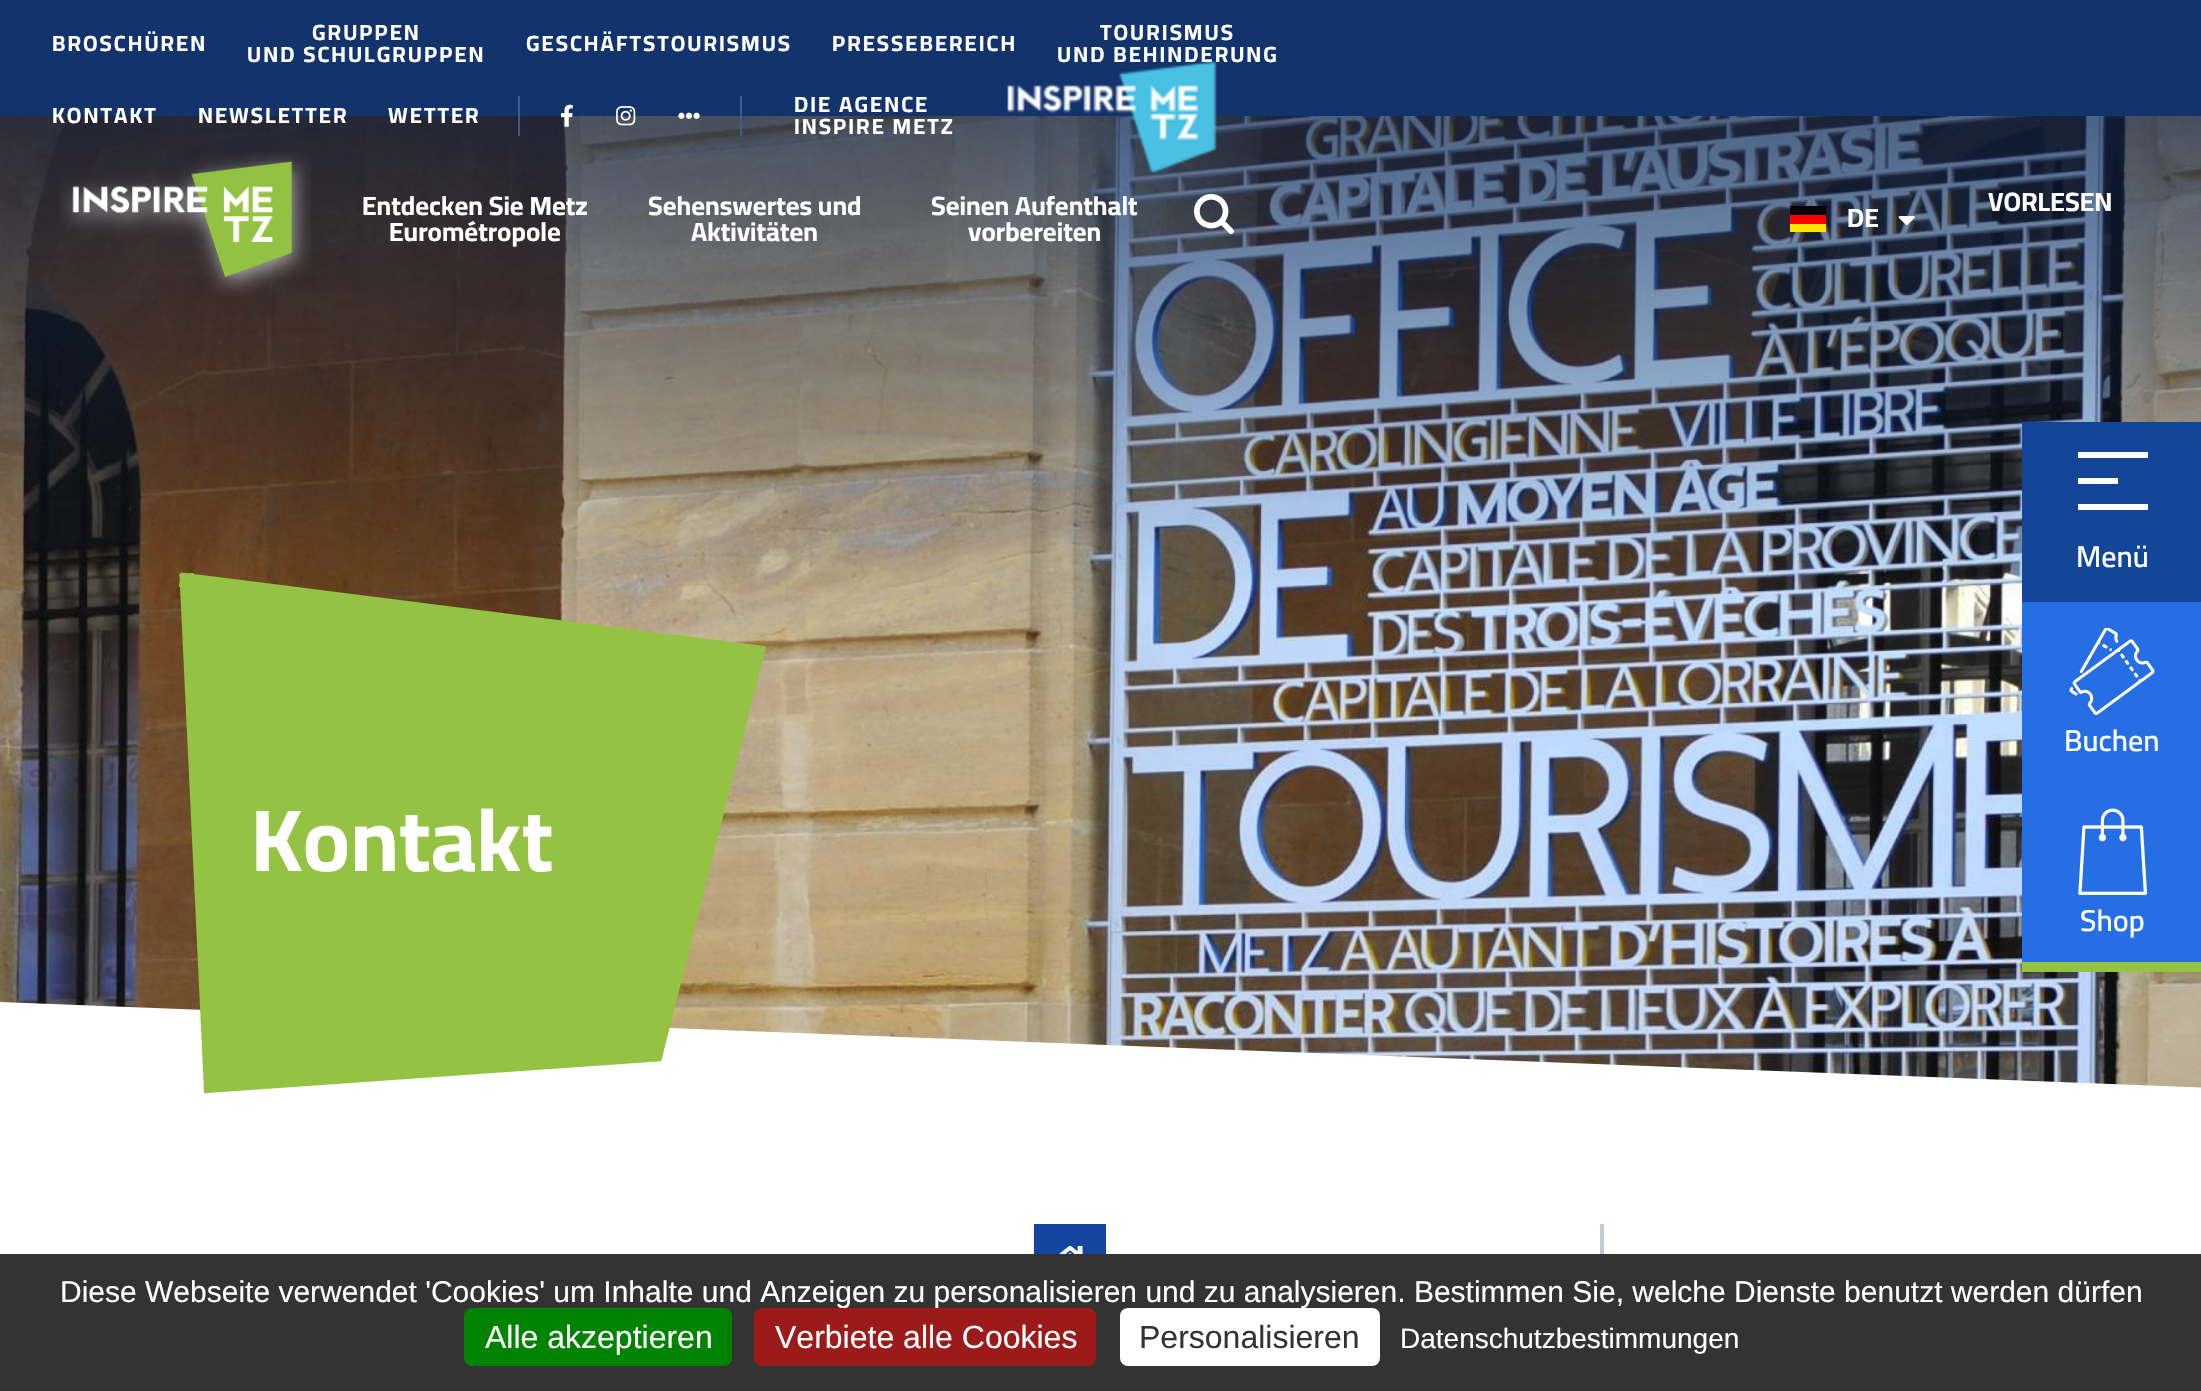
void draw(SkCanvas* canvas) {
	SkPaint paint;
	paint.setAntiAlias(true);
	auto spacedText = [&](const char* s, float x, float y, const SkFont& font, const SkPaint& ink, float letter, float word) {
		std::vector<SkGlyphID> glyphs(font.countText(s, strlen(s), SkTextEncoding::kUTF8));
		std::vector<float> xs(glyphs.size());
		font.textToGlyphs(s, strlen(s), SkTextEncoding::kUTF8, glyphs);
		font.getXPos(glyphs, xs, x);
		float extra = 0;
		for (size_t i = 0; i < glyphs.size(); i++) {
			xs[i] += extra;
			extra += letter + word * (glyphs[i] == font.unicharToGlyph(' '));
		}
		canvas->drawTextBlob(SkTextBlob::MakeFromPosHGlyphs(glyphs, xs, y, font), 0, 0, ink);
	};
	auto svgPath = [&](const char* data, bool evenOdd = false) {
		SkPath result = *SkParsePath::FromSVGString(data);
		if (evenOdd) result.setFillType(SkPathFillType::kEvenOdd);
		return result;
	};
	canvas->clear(0xffffffff);
	paint.setColor(0xff13336d);
	canvas->drawRect(SkRect::MakeXYWH(0, 0, 2201, 116), paint);
	SkFont f1(fontMgr->matchFamilyStyle("Cairo", SkFontStyle::Bold()), 22);
	f1.setSubpixel(true);
	paint.setColor(0xffffffff);
	spacedText("BROSCHÜREN", 52, 51, f1, paint, 2, 0);
	spacedText("GRUPPEN", 312, 40, f1, paint, 2, 0);
	spacedText("UND SCHULGRUPPEN", 247, 62, f1, paint, 2, 0);
	spacedText("GESCHÄFTSTOURISMUS", 526, 51, f1, paint, 2, 0);
	spacedText("PRESSEBEREICH", 832, 51, f1, paint, 2, 0);
	spacedText("TOURISMUS", 1100, 40, f1, paint, 2, 0);
	spacedText("UND BEHINDERUNG", 1057, 62, f1, paint, 2, 0);
	canvas->drawImageRect(SkImages::DeferredFromEncodedData(SkData::MakeFromFileName("img8.png")), SkRect::MakeXYWH(0, 116, 2201, 972), SkSamplingOptions());
	spacedText("KONTAKT", 52, 123, f1, paint, 2, 0);
	spacedText("NEWSLETTER", 198, 123, f1, paint, 2, 0);
	spacedText("WETTER", 388, 123, f1, paint, 2, 0);
	paint.setColor(0xff425c8a);
	canvas->drawRect(SkRect::MakeXYWH(518, 96, 2, 40), paint);
	canvas->drawImageRect(SkImages::DeferredFromEncodedData(SkData::MakeFromFileName("img1.png")), SkRect::MakeXYWH(561, 104, 12, 23), SkSamplingOptions());
	canvas->drawImageRect(SkImages::DeferredFromEncodedData(SkData::MakeFromFileName("img2.png")), SkRect::MakeXYWH(616, 106, 20, 20), SkSamplingOptions());
	canvas->drawImageRect(SkImages::DeferredFromEncodedData(SkData::MakeFromFileName("img3.png")), SkRect::MakeXYWH(678, 112, 22, 7), SkSamplingOptions());
	canvas->drawRect(SkRect::MakeXYWH(740, 96, 2, 40), paint);
	paint.setColor(0xffffffff);
	spacedText("DIE AGENCE", 794, 112, f1, paint, 2, 0);
	spacedText("INSPIRE METZ", 794, 134, f1, paint, 2, 0);
	canvas->drawImageRect(SkImages::DeferredFromEncodedData(SkData::MakeFromFileName("img4.png")), SkRect::MakeXYWH(1007, 61, 210, 112), SkSamplingOptions());
	canvas->drawImageRect(SkImages::DeferredFromEncodedData(SkData::MakeFromFileName("img5.png")), SkRect::MakeXYWH(59, 152, 252, 144), SkSamplingOptions());
	SkFont f2(fontMgr->matchFamilyStyle("Cairo", SkFontStyle::Bold()), 26.5);
	f2.setSubpixel(true);
	canvas->drawString("Entdecken Sie Metz", 362, 215, f2, paint);
	canvas->drawString("Eurométropole", 389, 241, f2, paint);
	canvas->drawString("Sehenswertes und", 648, 215, f2, paint);
	canvas->drawString("Aktivitäten", 691, 241, f2, paint);
	canvas->drawString("Seinen Aufenthalt", 931, 215, f2, paint);
	canvas->drawString("vorbereiten", 968, 241, f2, paint);
	canvas->drawImageRect(SkImages::DeferredFromEncodedData(SkData::MakeFromFileName("img6.png")), SkRect::MakeXYWH(1194, 194, 40, 40), SkSamplingOptions());
	canvas->drawString("VORLESEN", 1988, 211, f2, paint);
	paint.setColor(0xffffe600);
	canvas->drawRect(SkRect::MakeXYWH(1790, 224, 36, 8), paint);
	paint.setColor(0xff000000);
	canvas->drawRect(SkRect::MakeXYWH(1790, 206, 36, 9), paint);
	paint.setColor(0xffff0000);
	canvas->drawRect(SkRect::MakeXYWH(1790, 215, 36, 9), paint);
	paint.setColor(0xffffffff);
	canvas->drawString("DE", 1847, 227, f2, paint);
	canvas->drawImageRect(SkImages::DeferredFromEncodedData(SkData::MakeFromFileName("img7.png")), SkRect::MakeXYWH(1898, 216, 17, 10), SkSamplingOptions());
	canvas->drawPath(svgPath("M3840 1200H0V1002L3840 1151Z", true), paint);
	paint.setColor(0xff94c242);
	canvas->drawPath(svgPath("M187 581L757 652L655 1054L211 1086Z", true), paint);
	paint.setStroke(true);
	paint.setStrokeWidth(14.5);
	paint.setStrokeCap(SkPaint::kSquare_Cap);
	canvas->drawPath(svgPath("M187 580.5L757 652.5L655.5 1054.5L211 1085.5L187 580.5"), paint);
	SkFont f3(fontMgr->matchFamilyStyle("Cairo", SkFontStyle::Bold()), 88);
	f3.setSubpixel(true);
	paint.setStroke(false);
	paint.setColor(0xffffffff);
	canvas->drawString("Kontakt", 251, 871, f3, paint);
	paint.setColor(0xff13469e);
	canvas->drawRect(SkRect::MakeXYWH(1034, 1224, 72, 30), paint);
	canvas->drawImageRect(SkImages::DeferredFromEncodedData(SkData::MakeFromFileName("img9.png")), SkRect::MakeXYWH(1059, 1246, 24, 8), SkSamplingOptions());
	paint.setColor(0xffc3cad5);
	canvas->drawRect(SkRect::MakeXYWH(1600, 1224, 4, 30), paint);
	paint.setColor(0xff94c242);
	canvas->drawRect(SkRect::MakeXYWH(2022, 962, 179, 10), paint);
	paint.setColor(0xff134598);
	canvas->drawRect(SkRect::MakeXYWH(2022, 422, 179, 180), paint);
	paint.setColor(0xffffffff);
	canvas->drawRect(SkRect::MakeXYWH(2078, 452, 70, 6), paint);
	canvas->drawRect(SkRect::MakeXYWH(2078, 478, 40, 6), paint);
	canvas->drawRect(SkRect::MakeXYWH(2078, 504, 70, 6), paint);
	SkFont f4(fontMgr->matchFamilyStyle("Cairo", SkFontStyle(600, SkFontStyle::kNormal_Width, SkFontStyle::kUpright_Slant)), 30);
	f4.setSubpixel(true);
	canvas->drawString("Menü", 2076, 567, f4, paint);
	paint.setColor(0xff266ee4);
	canvas->drawRect(SkRect::MakeXYWH(2022, 602, 179, 360), paint);
	canvas->drawImageRect(SkImages::DeferredFromEncodedData(SkData::MakeFromFileName("img10.png")), SkRect::MakeXYWH(2069, 628, 86, 87), SkSamplingOptions());
	paint.setColor(0xffffffff);
	canvas->drawString("Buchen", 2064, 751, f4, paint);
	canvas->drawImageRect(SkImages::DeferredFromEncodedData(SkData::MakeFromFileName("img11.png")), SkRect::MakeXYWH(2078, 808, 69, 87), SkSamplingOptions());
	canvas->drawString("Shop", 2080, 931, f4, paint);
	paint.setColor(0xff333333);
	canvas->drawRect(SkRect::MakeXYWH(0, 1254, 2201, 137), paint);
	canvas->save();
	canvas->clipRect(SkRect::MakeXYWH(40, 1274, 2122, 34));
	SkFont f5(fontMgr->matchFamilyStyle("Liberation Sans", SkFontStyle::Normal()), 30);
	f5.setSubpixel(true);
	paint.setColor(0xffffffff);
	canvas->drawString("Diese Webseite verwendet 'Cookies' um Inhalte und Anzeigen zu personalisieren und zu analysieren. Bestimmen Sie, welche Dienste benutzt werden dürfen", 60, 1302, f5, paint);
	canvas->restore();
	paint.setColor(0xff008300);
	canvas->drawRoundRect(SkRect::MakeXYWH(464, 1308, 268, 58), 8, 8, paint);
	SkFont f6(fontMgr->matchFamilyStyle("Liberation Sans", SkFontStyle::Normal()), 32);
	f6.setSubpixel(true);
	paint.setColor(0xffffffff);
	canvas->drawString("Alle akzeptieren", 485, 1348, f6, paint);
	paint.setColor(0xff9c1a1a);
	canvas->drawRoundRect(SkRect::MakeXYWH(754, 1308, 342, 58), 8, 8, paint);
	paint.setColor(0xffffffff);
	canvas->drawString("Verbiete alle Cookies", 775, 1348, f6, paint);
	canvas->drawRoundRect(SkRect::MakeXYWH(1120, 1308, 260, 58), 8, 8, paint);
	paint.setColor(0xff333333);
	canvas->drawString("Personalisieren", 1139, 1348, f6, paint);
	SkFont f7(fontMgr->matchFamilyStyle("Liberation Sans", SkFontStyle::Normal()), 28);
	f7.setSubpixel(true);
	paint.setColor(0xffffffff);
	canvas->drawString("Datenschutzbestimmungen", 1400, 1348, f7, paint);
}
